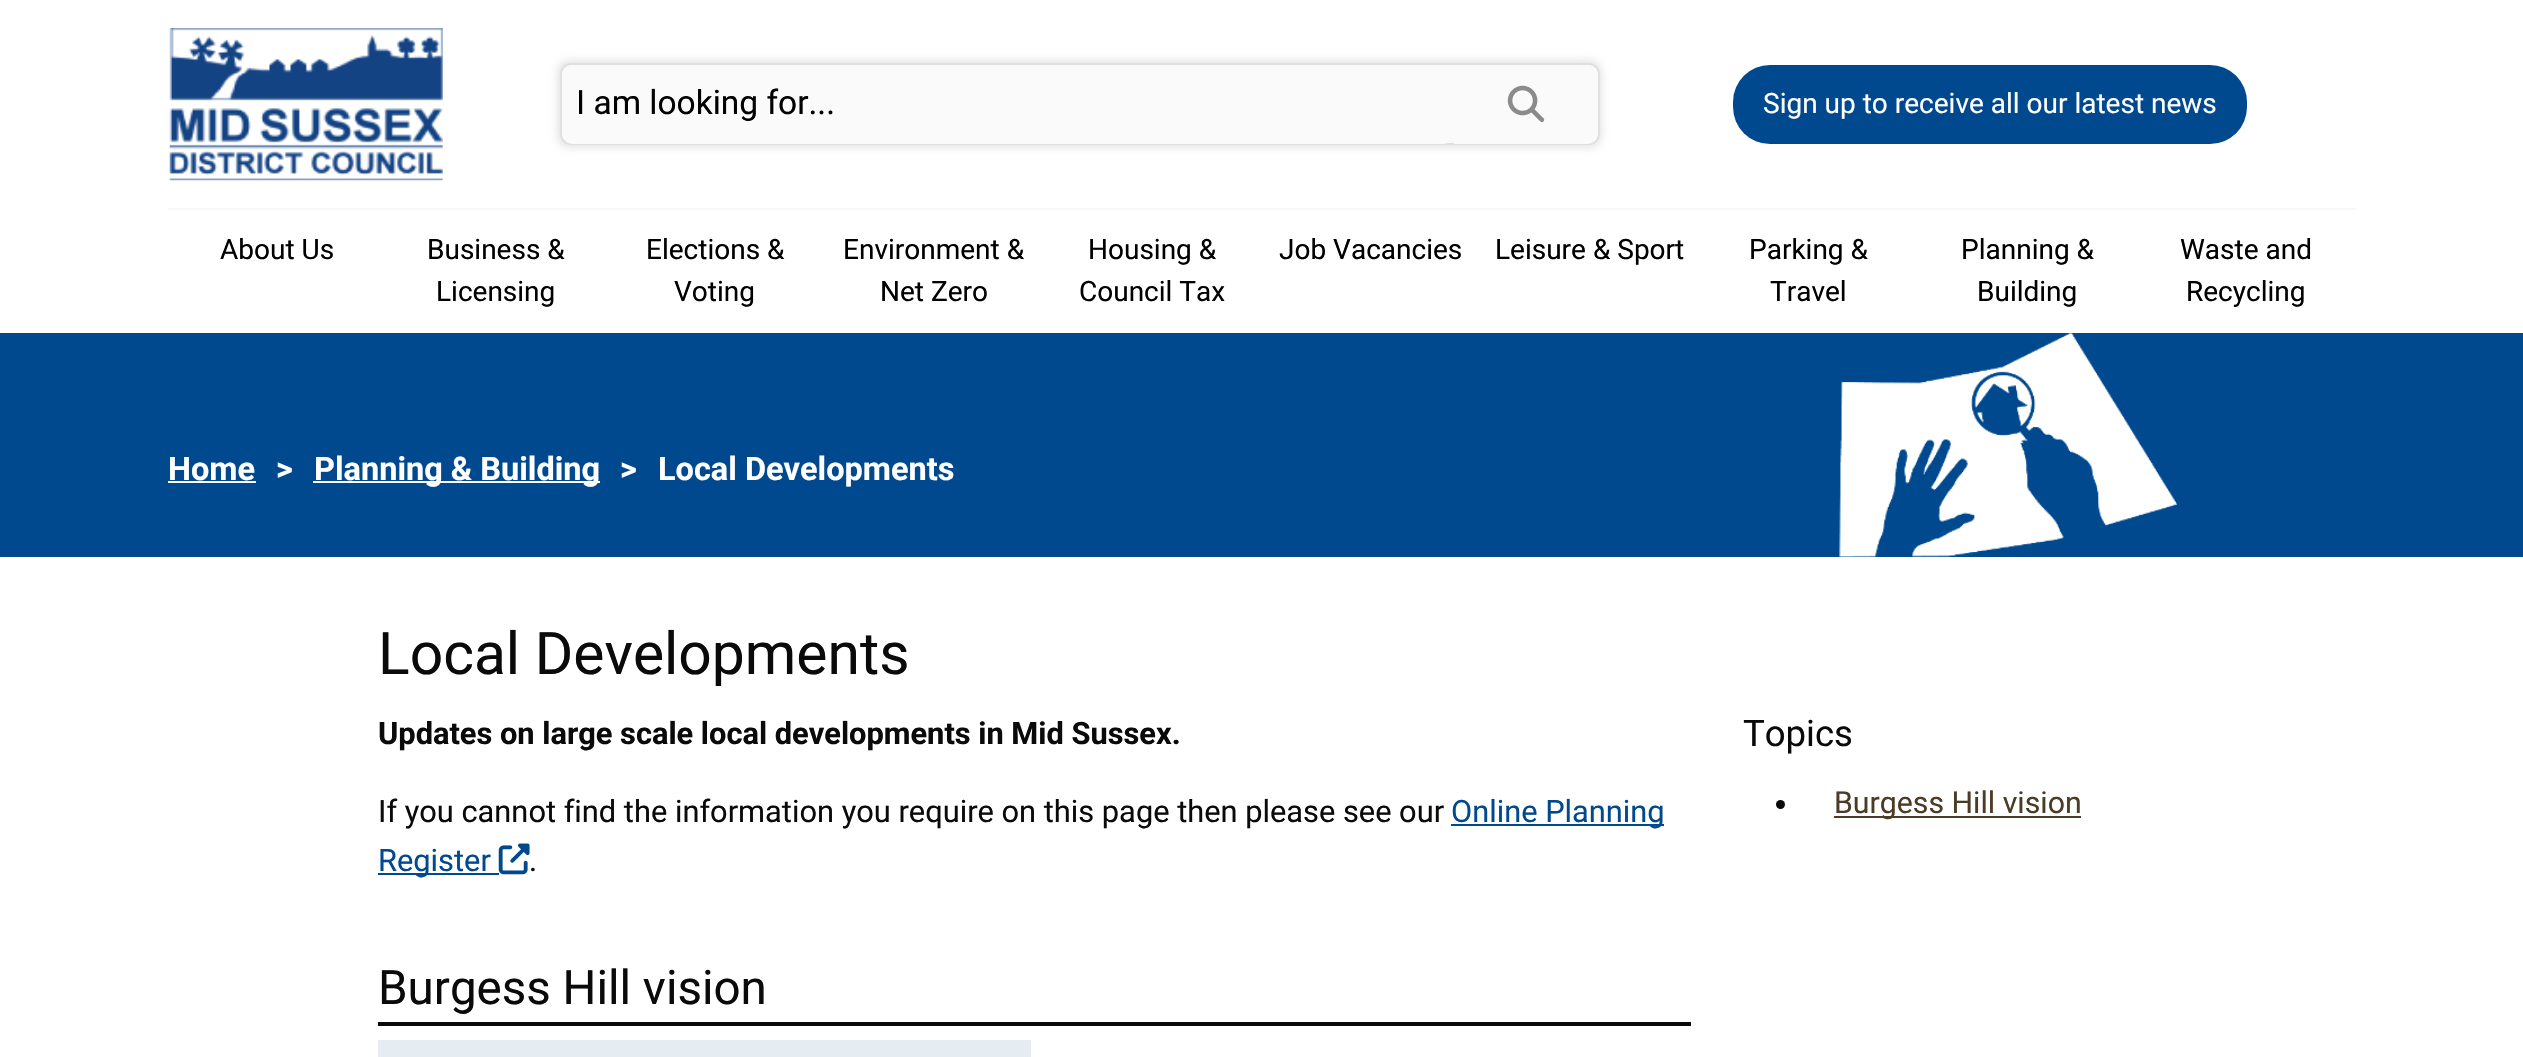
void draw(SkCanvas* canvas) {
	SkPaint paint;
	paint.setAntiAlias(true);
	auto svgPath = [&](const char* data, bool evenOdd = false) {
		SkPath result = *SkParsePath::FromSVGString(data);
		if (evenOdd) result.setFillType(SkPathFillType::kEvenOdd);
		return result;
	};
	canvas->clear(0xffffffff);
	canvas->drawImageRect(SkImages::DeferredFromEncodedData(SkData::MakeFromFileName("img1.png")), SkRect::MakeXYWH(169, 28, 274, 153), SkSamplingOptions());
	paint.setColor(0xffe0e0e0);
	paint.setMaskFilter(SkMaskFilter::MakeBlur(kNormal_SkBlurStyle, 4.5));
	canvas->drawRoundRect(SkRect::MakeXYWH(558, 61, 1043, 86), 12, 12, paint);
	paint.setMaskFilter(nullptr);
	paint.setColor(0xfffafafa);
	canvas->drawRoundRect(SkRect::MakeXYWH(561, 64, 1038, 80), 10, 10, paint);
	paint.setStroke(true);
	paint.setStrokeWidth(2);
	paint.setColor(0xffe0e0e0);
	canvas->drawRoundRect(SkRect::MakeXYWH(561, 64, 1038, 80), 10, 10, paint);
	paint.setStroke(false);
	paint.setColor(0xfffafafa);
	canvas->drawRoundRect(SkRect::MakeXYWH(562, 65, 892, 79), 11, 11, paint);
	SkFont f1(fontMgr->matchFamilyStyle("Roboto", SkFontStyle::Normal()), 33.5);
	f1.setSubpixel(true);
	paint.setColor(0xff000000);
	canvas->drawString("I am looking for...", 576, 114, f1, paint);
	paint.setColor(0xfffafafa);
	canvas->drawPath(svgPath("M1454 65H1587C1593 65 1598 70 1598 76V133C1598 139 1593 144 1587 144H1454Z"), paint);
	canvas->drawImageRect(SkImages::DeferredFromEncodedData(SkData::MakeFromFileName("img2.png")), SkRect::MakeXYWH(1507, 85, 38, 38), SkSamplingOptions());
	paint.setColor(0xff00498f);
	canvas->drawRoundRect(SkRect::MakeXYWH(1733, 65, 514, 79), 37, 37, paint);
	SkFont f2(fontMgr->matchFamilyStyle("Roboto", SkFontStyle::Normal()), 28);
	f2.setSubpixel(true);
	paint.setColor(0xffffffff);
	canvas->drawString("Sign up to receive all our latest news", 1763, 113, f2, paint);
	paint.setColor(0xfff7f7f7);
	canvas->drawRect(SkRect::MakeXYWH(168, 208, 2188, 2), paint);
	paint.setColor(0xff000000);
	canvas->drawString("About Us", 220, 259, f2, paint);
	canvas->drawString("Business &", 427, 259, f2, paint);
	canvas->drawString("Licensing", 436, 301, f2, paint);
	canvas->drawString("Elections &", 646, 259, f2, paint);
	canvas->drawString("Voting", 674, 301, f2, paint);
	canvas->drawString("Environment &", 843, 259, f2, paint);
	canvas->drawString("Net Zero", 880, 301, f2, paint);
	canvas->drawString("Housing &", 1088, 259, f2, paint);
	canvas->drawString("Council Tax", 1079, 301, f2, paint);
	canvas->drawString("Job Vacancies", 1279, 259, f2, paint);
	canvas->drawString("Leisure & Sport", 1495, 259, f2, paint);
	canvas->drawString("Parking &", 1749, 259, f2, paint);
	canvas->drawString("Travel", 1770, 301, f2, paint);
	canvas->drawString("Planning &", 1961, 259, f2, paint);
	canvas->drawString("Building", 1977, 301, f2, paint);
	canvas->drawString("Waste and", 2180, 259, f2, paint);
	canvas->drawString("Recycling", 2186, 301, f2, paint);
	paint.setColor(0xff00498f);
	canvas->drawRect(SkRect::MakeXYWH(0, 333, 2523, 224), paint);
	SkFont f3(fontMgr->matchFamilyStyle("Roboto", SkFontStyle::Bold()), 32.5);
	f3.setSubpixel(true);
	paint.setColor(0xffffffff);
	canvas->drawString("Home", 168, 480, f3, paint);
	canvas->drawRect(SkRect::MakeXYWH(168, 481, 88, 2), paint);
	canvas->drawString(">", 276, 480, f3, paint);
	canvas->drawRect(SkRect::MakeXYWH(313, 481, 287, 2), paint);
	canvas->drawString("Planning & Building", 314, 480, f3, paint);
	canvas->drawString(">", 620, 480, f3, paint);
	canvas->drawString("Local Developments", 658, 480, f3, paint);
	canvas->drawImageRect(SkImages::DeferredFromEncodedData(SkData::MakeFromFileName("img3.png")), SkRect::MakeXYWH(1839, 333, 338, 224), SkSamplingOptions());
	SkFont f4(fontMgr->matchFamilyStyle("Roboto", SkFontStyle::Normal()), 58.75);
	f4.setSubpixel(true);
	paint.setColor(0xff0a0a0a);
	canvas->drawString("Local Developments", 378, 674, f4, paint);
	SkFont f5(fontMgr->matchFamilyStyle("Roboto", SkFontStyle::Bold()), 30.8);
	f5.setSubpixel(true);
	canvas->drawString("Updates on large scale local developments in Mid Sussex.", 378, 744, f5, paint);
	SkFont f6(fontMgr->matchFamilyStyle("Roboto", SkFontStyle::Normal()), 30.8);
	f6.setSubpixel(true);
	canvas->drawString("If you cannot find the information you require on this page then please see our", 378, 822, f6, paint);
	paint.setColor(0xff00498f);
	canvas->drawRect(SkRect::MakeXYWH(1451, 824, 213, 2), paint);
	canvas->drawString("Online Planning", 1451, 822, f6, paint);
	canvas->drawRect(SkRect::MakeXYWH(378, 873, 112, 2), paint);
	canvas->drawString("Register", 378, 871, f6, paint);
	canvas->drawRect(SkRect::MakeXYWH(490, 873, 9, 2), paint);
	canvas->drawImageRect(SkImages::DeferredFromEncodedData(SkData::MakeFromFileName("img4.png")), SkRect::MakeXYWH(498, 843, 32, 32), SkSamplingOptions());
	paint.setColor(0xff0a0a0a);
	canvas->drawString(".", 529, 871, f6, paint);
	canvas->drawRect(SkRect::MakeXYWH(378, 1022, 1313, 4), paint);
	SkFont f7(fontMgr->matchFamilyStyle("Roboto", SkFontStyle::Normal()), 47.5);
	f7.setSubpixel(true);
	canvas->drawString("Burgess Hill vision", 378, 1004, f7, paint);
	paint.setColor(0xffe5ecf2);
	canvas->drawRect(SkRect::MakeXYWH(378, 1040, 653, 17), paint);
	SkFont f8(fontMgr->matchFamilyStyle("Roboto", SkFontStyle::Normal()), 36.5);
	f8.setSubpixel(true);
	paint.setColor(0xff0a0a0a);
	canvas->drawString("Topics", 1743, 746, f8, paint);
	canvas->drawCircle(1780.5, 804.5, 4.5, paint);
	paint.setColor(0xff4c3b25);
	canvas->drawRect(SkRect::MakeXYWH(1834, 816, 247, 2), paint);
	SkFont f9(fontMgr->matchFamilyStyle("Roboto", SkFontStyle::Normal()), 30.25);
	f9.setSubpixel(true);
	canvas->drawString("Burgess Hill vision", 1834, 813, f9, paint);
}
